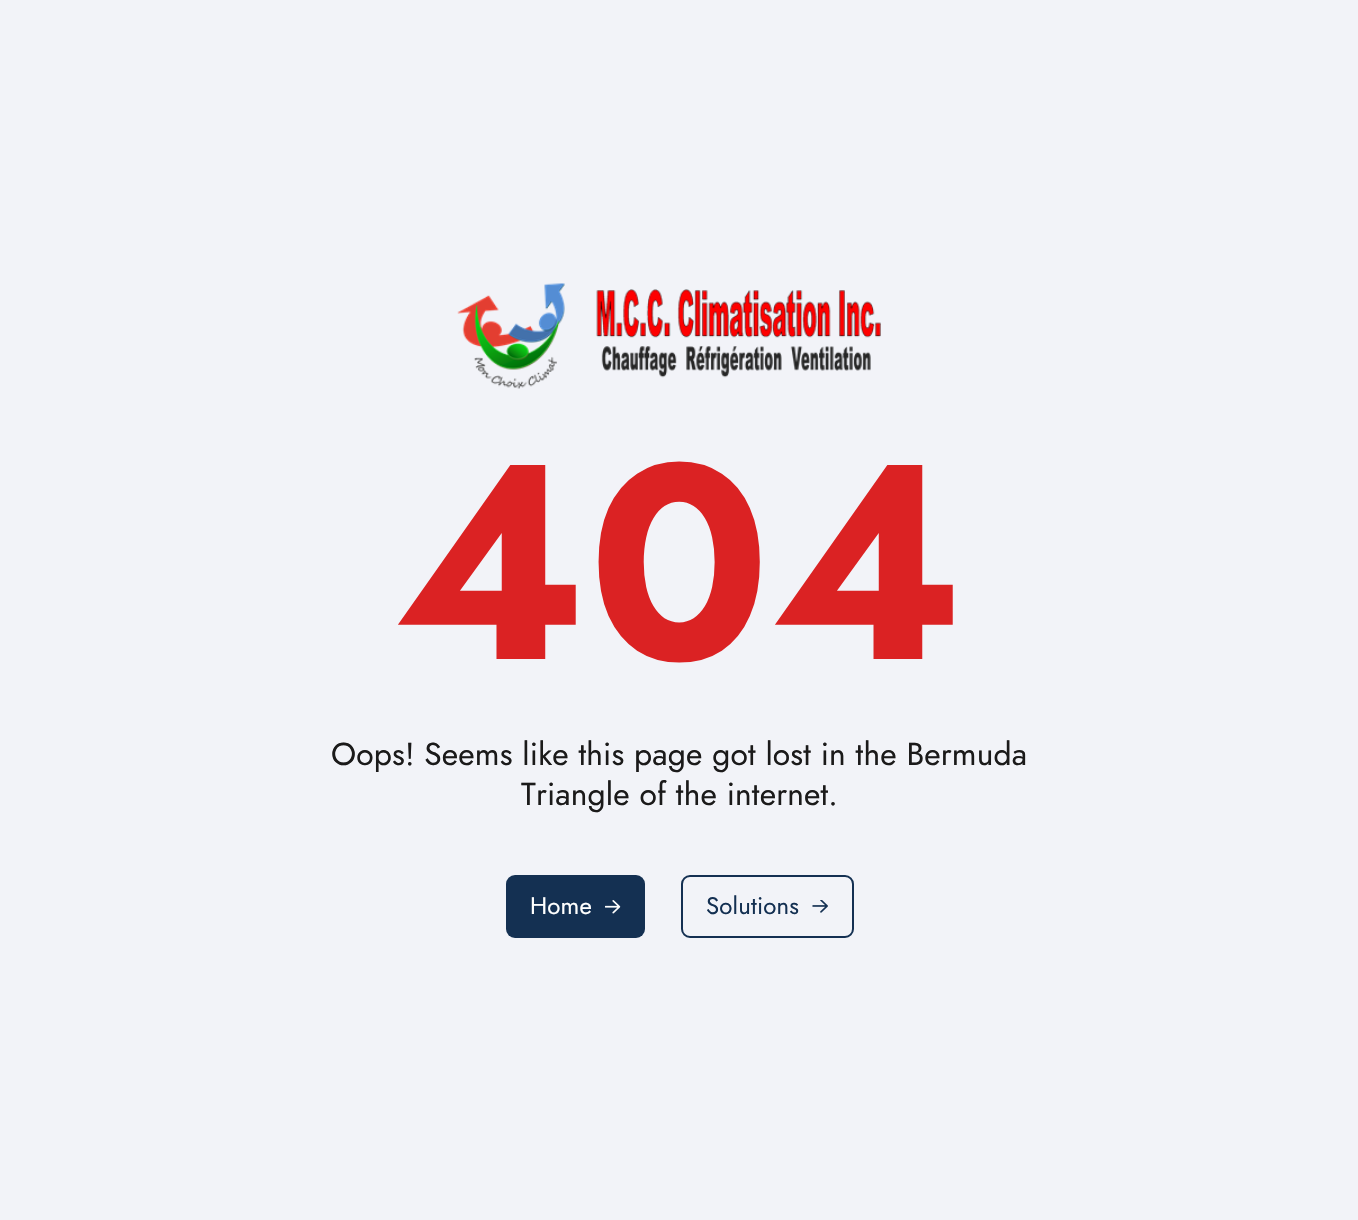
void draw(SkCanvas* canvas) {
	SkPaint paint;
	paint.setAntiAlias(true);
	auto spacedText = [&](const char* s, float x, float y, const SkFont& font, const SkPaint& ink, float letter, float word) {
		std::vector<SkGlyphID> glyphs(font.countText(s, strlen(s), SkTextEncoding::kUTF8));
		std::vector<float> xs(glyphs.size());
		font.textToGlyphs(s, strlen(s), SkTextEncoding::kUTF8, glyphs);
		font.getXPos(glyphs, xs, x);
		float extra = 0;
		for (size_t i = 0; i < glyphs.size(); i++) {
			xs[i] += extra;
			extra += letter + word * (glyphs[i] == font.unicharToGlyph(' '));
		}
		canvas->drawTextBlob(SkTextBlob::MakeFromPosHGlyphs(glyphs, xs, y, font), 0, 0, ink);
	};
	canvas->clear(0xfff2f3f8);
	canvas->drawImageRect(SkImages::DeferredFromEncodedData(SkData::MakeFromFileName("img1.png")), SkRect::MakeXYWH(457, 283, 424, 106), SkSamplingOptions());
	SkFont f1(fontMgr->matchFamilyStyle("Jost", SkFontStyle::Bold()), 277);
	f1.setSubpixel(true);
	paint.setColor(0xffdb2223);
	spacedText("404", 394, 659, f1, paint, 0.15, 0);
	SkFont f2(fontMgr->matchFamilyStyle("Jost", SkFontStyle::Normal()), 31.75);
	f2.setSubpixel(true);
	paint.setColor(0xff1b1a1a);
	spacedText("Oops! Seems like this page got lost in the Bermuda", 331, 765, f2, paint, 0.15, 0);
	spacedText("Triangle of the internet.", 521, 805, f2, paint, 0.15, 0);
	paint.setColor(0xff143052);
	canvas->drawRoundRect(SkRect::MakeXYWH(506, 875, 139, 63), 9, 9, paint);
	SkFont f3(fontMgr->matchFamilyStyle("Jost", SkFontStyle::Normal()), 24);
	f3.setSubpixel(true);
	paint.setColor(0xffffffff);
	spacedText("Home", 530, 914, f3, paint, 0.15, 0);
	canvas->drawImageRect(SkImages::DeferredFromEncodedData(SkData::MakeFromFileName("img2.png")), SkRect::MakeXYWH(605, 900, 16, 14), SkSamplingOptions());
	paint.setStroke(true);
	paint.setStrokeWidth(2);
	paint.setColor(0xff143052);
	canvas->drawRoundRect(SkRect::MakeXYWH(682, 876, 171, 61), 8, 8, paint);
	paint.setStroke(false);
	spacedText("Solutions", 706, 914, f3, paint, 0.15, 0);
	canvas->drawImageRect(SkImages::DeferredFromEncodedData(SkData::MakeFromFileName("img3.png")), SkRect::MakeXYWH(812, 900, 16, 13), SkSamplingOptions());
}
